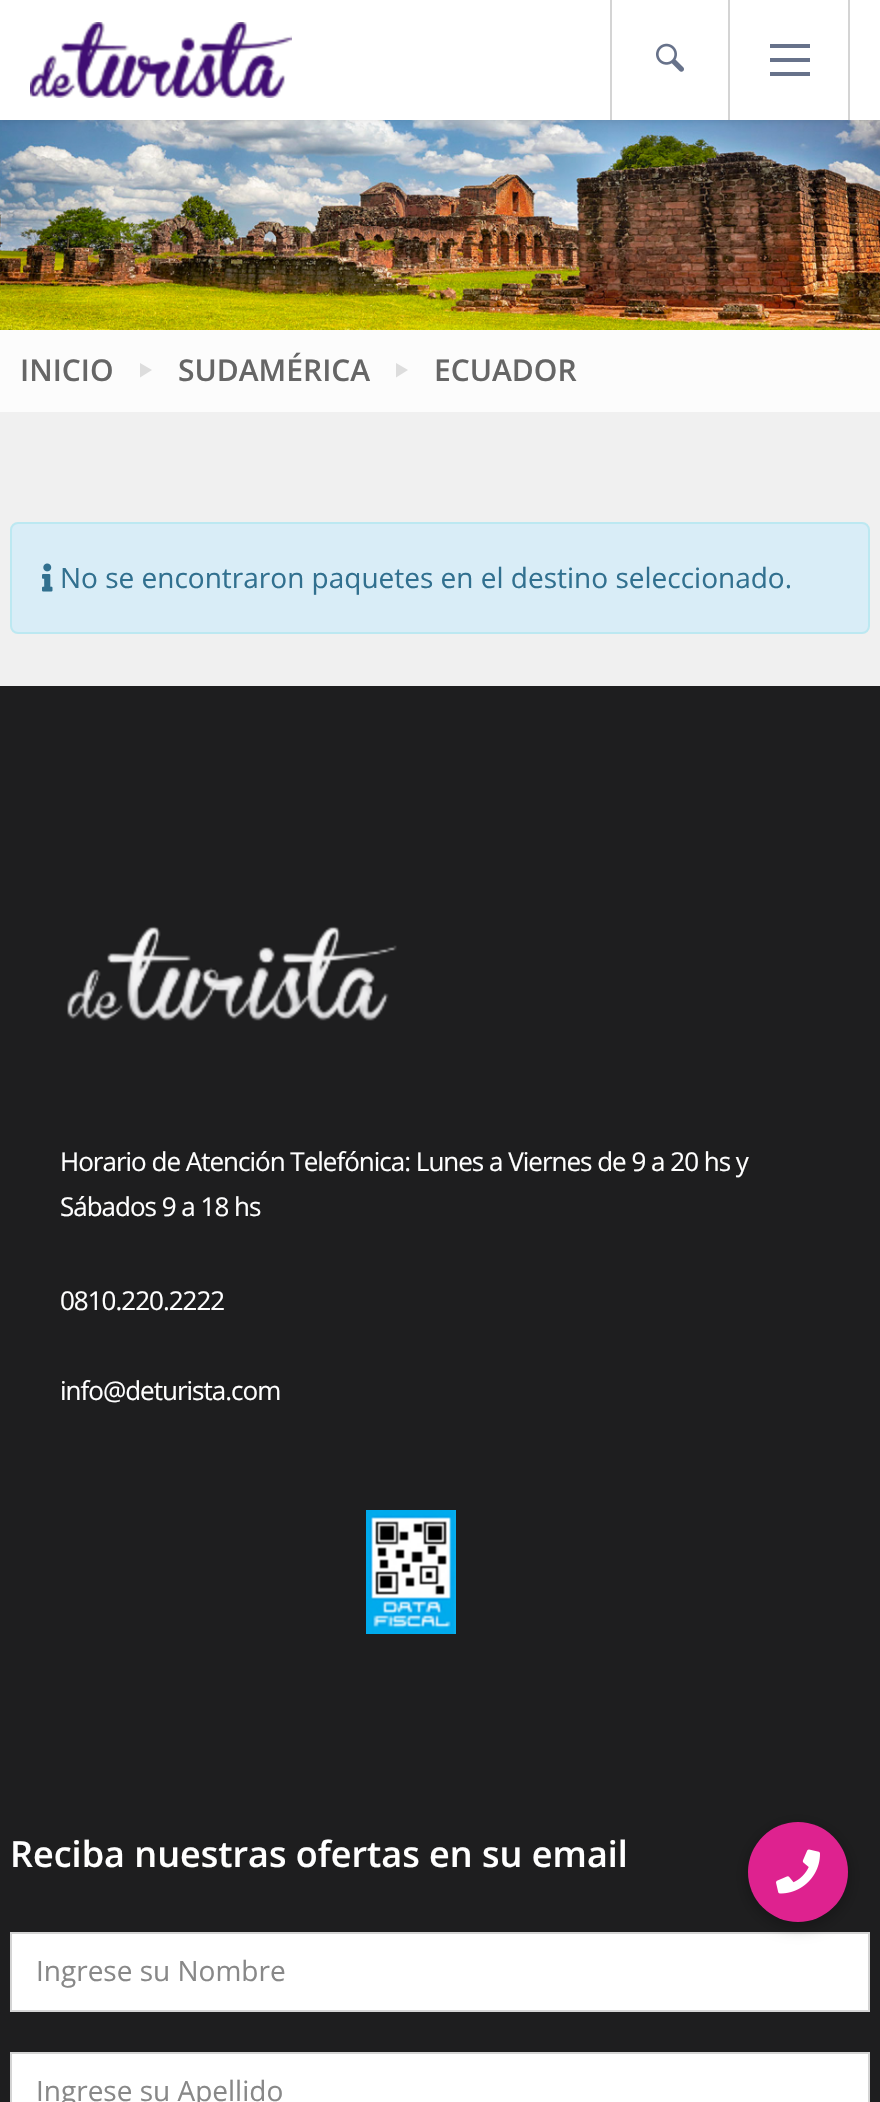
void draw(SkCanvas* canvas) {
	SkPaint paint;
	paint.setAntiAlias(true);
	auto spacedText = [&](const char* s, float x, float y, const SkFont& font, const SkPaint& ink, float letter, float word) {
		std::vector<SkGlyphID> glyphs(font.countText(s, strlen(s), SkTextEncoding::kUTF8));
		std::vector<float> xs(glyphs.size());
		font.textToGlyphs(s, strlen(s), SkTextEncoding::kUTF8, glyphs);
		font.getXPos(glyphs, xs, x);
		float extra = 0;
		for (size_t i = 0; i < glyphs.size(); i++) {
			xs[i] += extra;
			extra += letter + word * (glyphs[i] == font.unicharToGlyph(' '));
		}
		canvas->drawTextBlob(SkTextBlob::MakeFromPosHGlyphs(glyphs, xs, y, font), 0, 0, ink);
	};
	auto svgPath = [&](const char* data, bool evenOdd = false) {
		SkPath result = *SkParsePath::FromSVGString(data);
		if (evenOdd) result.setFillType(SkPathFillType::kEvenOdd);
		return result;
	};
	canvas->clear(0xfff0f0f0);
	canvas->drawImageRect(SkImages::DeferredFromEncodedData(SkData::MakeFromFileName("img3.png")), SkRect::MakeXYWH(0, 120, 880, 210), SkSamplingOptions());
	paint.setColor(0x26000000);
	paint.setMaskFilter(SkMaskFilter::MakeBlur(kNormal_SkBlurStyle, 4));
	canvas->drawRect(SkRect::MakeXYWH(0, 0, 880, 120), paint);
	paint.setMaskFilter(nullptr);
	paint.setColor(0xffffffff);
	canvas->drawRect(SkRect::MakeXYWH(0, 0, 880, 120), paint);
	canvas->drawImageRect(SkImages::DeferredFromEncodedData(SkData::MakeFromFileName("img1.png")), SkRect::MakeXYWH(30, 22, 262, 76), SkSamplingOptions());
	paint.setColor(0xffd4d4d4);
	canvas->drawRect(SkRect::MakeXYWH(728, 0, 2, 120), paint);
	canvas->drawRect(SkRect::MakeXYWH(610, 0, 2, 120), paint);
	canvas->drawImageRect(SkImages::DeferredFromEncodedData(SkData::MakeFromFileName("img2.png")), SkRect::MakeXYWH(656, 43, 28, 29), SkSamplingOptions());
	canvas->drawRect(SkRect::MakeXYWH(848, 0, 2, 120), paint);
	paint.setColor(0xff67728a);
	canvas->drawRect(SkRect::MakeXYWH(770, 44, 40, 4), paint);
	canvas->drawRect(SkRect::MakeXYWH(770, 58, 40, 4), paint);
	canvas->drawRect(SkRect::MakeXYWH(770, 72, 40, 4), paint);
	paint.setColor(0xfffcfcfc);
	canvas->drawRect(SkRect::MakeXYWH(0, 330, 880, 82), paint);
	SkFont f1(fontMgr->matchFamilyStyle("Open Sans", SkFontStyle(600, SkFontStyle::kNormal_Width, SkFontStyle::kUpright_Slant)), 30);
	f1.setSubpixel(true);
	paint.setColor(0xff666666);
	canvas->drawString("INICIO", 20, 381, f1, paint);
	paint.setColor(0xffdddddd);
	canvas->drawPath(svgPath("M140 377.5V363L152 370Z"), paint);
	paint.setColor(0xff666666);
	canvas->drawString("SUDAMÉRICA", 178, 381, f1, paint);
	paint.setColor(0xffdddddd);
	canvas->drawPath(svgPath("M396 377.5V363L408 370Z"), paint);
	paint.setColor(0xff666666);
	canvas->drawString("ECUADOR", 434, 381, f1, paint);
	paint.setColor(0xffd9edf7);
	canvas->drawRoundRect(SkRect::MakeXYWH(11, 523, 858, 110), 7, 7, paint);
	paint.setStroke(true);
	paint.setStrokeWidth(2);
	paint.setColor(0xffbce8f1);
	canvas->drawRoundRect(SkRect::MakeXYWH(11, 523, 858, 110), 7, 7, paint);
	canvas->drawImageRect(SkImages::DeferredFromEncodedData(SkData::MakeFromFileName("img4.png")), SkRect::MakeXYWH(42, 563, 11, 29), SkSamplingOptions());
	SkFont f2(fontMgr->matchFamilyStyle("Open Sans", SkFontStyle::Normal()), 28);
	f2.setSubpixel(true);
	paint.setStroke(false);
	paint.setColor(0xff31708f);
	canvas->drawString("No se encontraron paquetes en el destino seleccionado.", 60, 588, f2, paint);
	paint.setColor(0xff1e1e1f);
	canvas->drawRect(SkRect::MakeXYWH(0, 686, 880, 1416), paint);
	canvas->drawImageRect(SkImages::DeferredFromEncodedData(SkData::MakeFromFileName("img5.png")), SkRect::MakeXYWH(67, 926, 330, 95), SkSamplingOptions());
	SkFont f3(fontMgr->matchFamilyStyle("Open Sans", SkFontStyle::Normal()), 26);
	f3.setSubpixel(true);
	paint.setColor(0xffffffff);
	spacedText("Horario de Atención Telefónica: Lunes a Viernes de 9 a 20 hs y", 60, 1171, f3, paint, -1, 0);
	spacedText("Sábados 9 a 18 hs", 60, 1216, f3, paint, -1, 0);
	spacedText("0810.220.2222", 60, 1310, f3, paint, -1, 0);
	spacedText("info@deturista.com", 60, 1400, f3, paint, -1, 0);
	canvas->drawImageRect(SkImages::DeferredFromEncodedData(SkData::MakeFromFileName("img6.png")), SkRect::MakeXYWH(366, 1510, 90, 124), SkSamplingOptions());
	SkFont f4(fontMgr->matchFamilyStyle("Open Sans", SkFontStyle(600, SkFontStyle::kNormal_Width, SkFontStyle::kUpright_Slant)), 36);
	f4.setSubpixel(true);
	canvas->drawString("Reciba nuestras ofertas en su email", 10, 1867, f4, paint);
	canvas->drawRect(SkRect::MakeXYWH(11, 1933, 858, 78), paint);
	paint.setStroke(true);
	paint.setColor(0xffd4d4d4);
	canvas->drawRect(SkRect::MakeXYWH(11, 1933, 858, 78), paint);
	paint.setStroke(false);
	paint.setColor(0xff888888);
	canvas->drawString("Ingrese su Nombre", 36, 1981, f2, paint);
	paint.setColor(0xffffffff);
	canvas->drawRect(SkRect::MakeXYWH(11, 2053, 858, 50), paint);
	paint.setStroke(true);
	paint.setColor(0xffd4d4d4);
	canvas->drawRect(SkRect::MakeXYWH(11, 2053, 858, 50), paint);
	paint.setStroke(false);
	paint.setColor(0xff888888);
	canvas->drawString("Ingrese su Apellido", 36, 2101, f2, paint);
	paint.setColor(0x4d000000);
	paint.setMaskFilter(SkMaskFilter::MakeBlur(kNormal_SkBlurStyle, 8));
	canvas->drawRoundRect(SkRect::MakeXYWH(748, 1826, 100, 100), 50, 50, paint);
	paint.setMaskFilter(nullptr);
	paint.setColor(0xffde228f);
	canvas->drawCircle(798, 1872, 50, paint);
	canvas->drawImageRect(SkImages::DeferredFromEncodedData(SkData::MakeFromFileName("img7.png")), SkRect::MakeXYWH(776, 1849, 44, 45), SkSamplingOptions());
}
